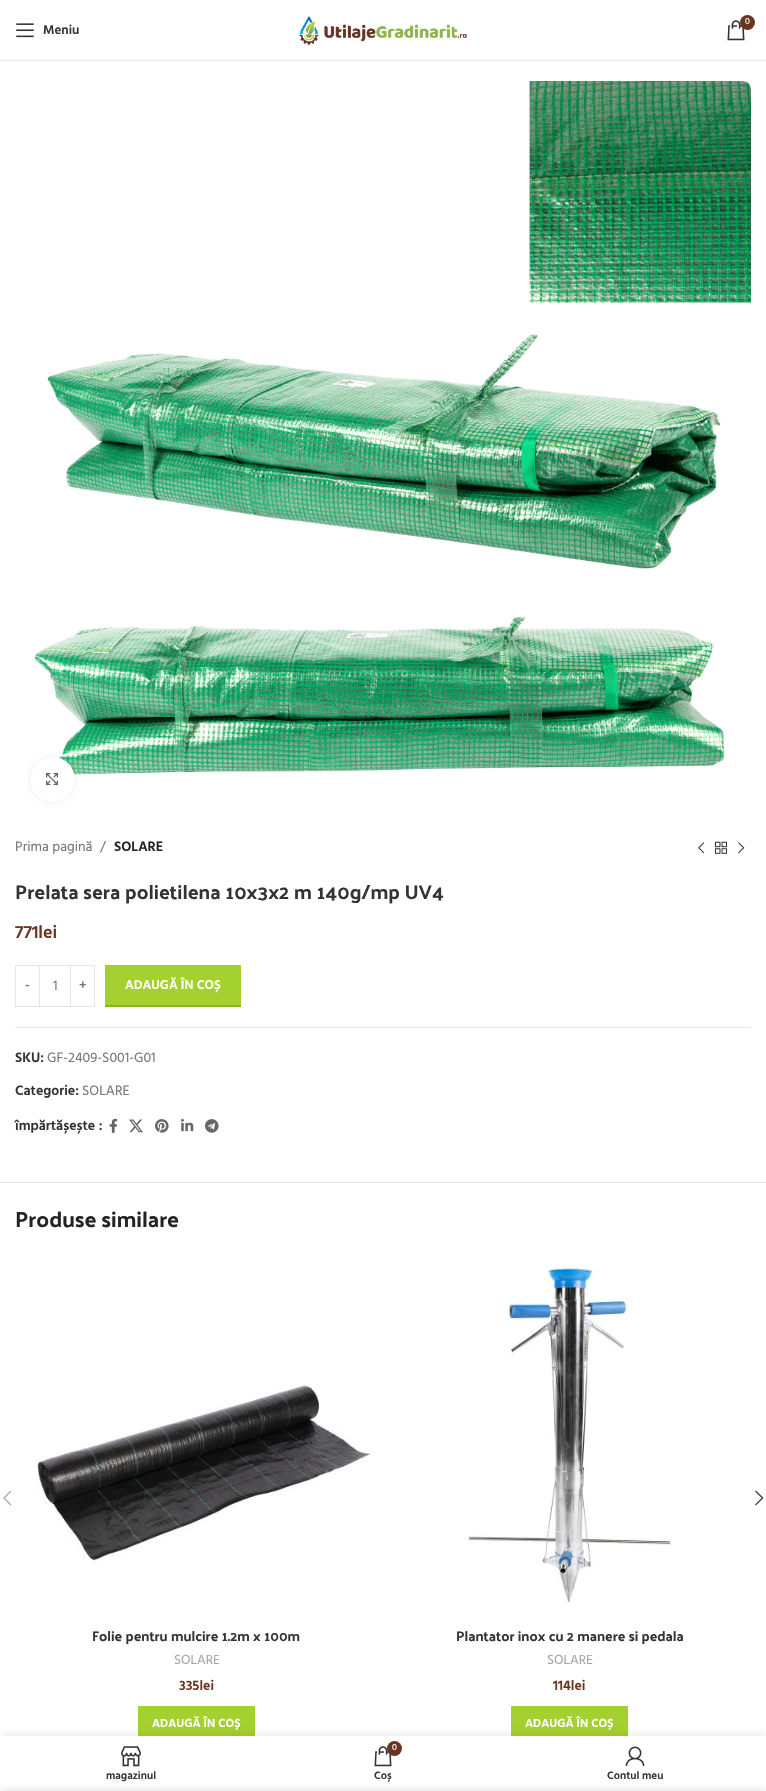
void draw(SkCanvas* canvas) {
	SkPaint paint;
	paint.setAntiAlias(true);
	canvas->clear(0xffffffff);
	paint.setColor(0xffe6e6e6);
	canvas->drawRect(SkRect::MakeXYWH(0, 60, 766, 1), paint);
	canvas->drawImageRect(SkImages::DeferredFromEncodedData(SkData::MakeFromFileName("img1.png")), SkRect::MakeXYWH(299, 16, 168, 29), SkSamplingOptions());
	canvas->drawImageRect(SkImages::DeferredFromEncodedData(SkData::MakeFromFileName("img2.png")), SkRect::MakeXYWH(727, 20, 18, 21), SkSamplingOptions());
	paint.setColor(0xff693422);
	canvas->drawCircle(747.5, 22.5, 7.5, paint);
	SkFont f1(fontMgr->matchFamilyStyle("Hind", SkFontStyle::Normal()), 9);
	f1.setSubpixel(true);
	paint.setColor(0xffffffff);
	canvas->drawString("0", 745, 24, f1, paint);
	canvas->drawImageRect(SkImages::DeferredFromEncodedData(SkData::MakeFromFileName("img3.png")), SkRect::MakeXYWH(16, 23, 18, 15), SkSamplingOptions());
	SkFont f2(fontMgr->matchFamilyStyle("Hind", SkFontStyle(600, SkFontStyle::kNormal_Width, SkFontStyle::kUpright_Slant)), 13);
	f2.setSubpixel(true);
	paint.setColor(0xff333333);
	canvas->drawString("Meniu", 43, 34, f2, paint);
	canvas->drawImageRect(SkImages::DeferredFromEncodedData(SkData::MakeFromFileName("img4.png")), SkRect::MakeXYWH(34, 81, 717, 694), SkSamplingOptions());
	paint.setColor(0x14000000);
	paint.setMaskFilter(SkMaskFilter::MakeBlur(kNormal_SkBlurStyle, 2.5));
	canvas->drawRoundRect(SkRect::MakeXYWH(30, 757, 45, 45), 22.5, 22.5, paint);
	paint.setMaskFilter(nullptr);
	paint.setColor(0xffffffff);
	canvas->drawCircle(52.5, 779.5, 22.5, paint);
	canvas->drawImageRect(SkImages::DeferredFromEncodedData(SkData::MakeFromFileName("img5.png")), SkRect::MakeXYWH(46, 773, 12, 12), SkSamplingOptions());
	SkFont f3(fontMgr->matchFamilyStyle("Hind", SkFontStyle::Normal()), 14);
	f3.setSubpixel(true);
	paint.setColor(0xff767676);
	canvas->drawString("Prima pagină", 15, 851, f3, paint);
	canvas->drawString("/", 100, 851, f3, paint);
	SkFont f4(fontMgr->matchFamilyStyle("Hind", SkFontStyle(600, SkFontStyle::kNormal_Width, SkFontStyle::kUpright_Slant)), 14);
	f4.setSubpixel(true);
	paint.setColor(0xff242424);
	canvas->drawString("SOLARE", 114, 851, f4, paint);
	canvas->drawImageRect(SkImages::DeferredFromEncodedData(SkData::MakeFromFileName("img6.png")), SkRect::MakeXYWH(698, 842, 7, 12), SkSamplingOptions());
	canvas->drawImageRect(SkImages::DeferredFromEncodedData(SkData::MakeFromFileName("img7.png")), SkRect::MakeXYWH(715, 841, 12, 13), SkSamplingOptions());
	canvas->drawImageRect(SkImages::DeferredFromEncodedData(SkData::MakeFromFileName("img8.png")), SkRect::MakeXYWH(738, 842, 7, 12), SkSamplingOptions());
	SkFont f5(fontMgr->matchFamilyStyle("Palanquin Dark", SkFontStyle::Normal()), 20);
	f5.setSubpixel(true);
	paint.setColor(0xff333333);
	canvas->drawString("Prelata sera polietilena 10x3x2 m 140g/mp UV4", 15, 899, f5, paint);
	SkFont f6(fontMgr->matchFamilyStyle("Hind", SkFontStyle(600, SkFontStyle::kNormal_Width, SkFontStyle::kUpright_Slant)), 18);
	f6.setSubpixel(true);
	paint.setColor(0xff693422);
	canvas->drawString("771lei", 15, 938, f6, paint);
	paint.setStroke(true);
	paint.setStrokeWidth(1);
	paint.setColor(0xffe6e6e6);
	canvas->drawRect(SkRect::MakeXYWH(15.5, 965.5, 24, 41), paint);
	paint.setStroke(false);
	paint.setColor(0xff767676);
	canvas->drawString("-", 25, 989, f2, paint);
	paint.setColor(0xffe6e6e6);
	canvas->drawRect(SkRect::MakeXYWH(40, 965, 30, 1), paint);
	canvas->drawRect(SkRect::MakeXYWH(40, 1006, 30, 1), paint);
	paint.setColor(0xff767676);
	canvas->drawString("1", 53, 990, f3, paint);
	paint.setStroke(true);
	paint.setColor(0xffe6e6e6);
	canvas->drawRect(SkRect::MakeXYWH(70.5, 965.5, 24, 41), paint);
	paint.setStroke(false);
	paint.setColor(0xff767676);
	canvas->drawString("+", 79, 989, f2, paint);
	paint.setColor(0xffa4d130);
	canvas->drawRect(SkRect::MakeXYWH(105, 965, 136, 40), paint);
	paint.setColor(0xff8bb229);
	canvas->drawRect(SkRect::MakeXYWH(105, 1005, 136, 2), paint);
	paint.setColor(0xffffffff);
	canvas->drawString("ADAUGĂ ÎN COȘ", 125, 989, f2, paint);
	paint.setColor(0xffe4e4e4);
	canvas->drawRect(SkRect::MakeXYWH(15, 1027, 736, 1), paint);
	paint.setColor(0xff333333);
	canvas->drawString("SKU:", 15, 1062, f4, paint);
	paint.setColor(0xff767676);
	canvas->drawString("GF-2409-S001-G01", 47, 1062, f3, paint);
	paint.setColor(0xff333333);
	canvas->drawString("Categorie:", 15, 1095, f4, paint);
	paint.setColor(0xff767676);
	canvas->drawString("SOLARE", 82, 1095, f3, paint);
	paint.setColor(0xff333333);
	canvas->drawString("împărtășește :", 15, 1130, f4, paint);
	canvas->drawImageRect(SkImages::DeferredFromEncodedData(SkData::MakeFromFileName("img9.png")), SkRect::MakeXYWH(109, 1118, 9, 15), SkSamplingOptions());
	canvas->drawImageRect(SkImages::DeferredFromEncodedData(SkData::MakeFromFileName("img10.png")), SkRect::MakeXYWH(129, 1119, 14, 14), SkSamplingOptions());
	canvas->drawImageRect(SkImages::DeferredFromEncodedData(SkData::MakeFromFileName("img11.png")), SkRect::MakeXYWH(155, 1119, 14, 14), SkSamplingOptions());
	canvas->drawImageRect(SkImages::DeferredFromEncodedData(SkData::MakeFromFileName("img12.png")), SkRect::MakeXYWH(181, 1118, 13, 14), SkSamplingOptions());
	canvas->drawImageRect(SkImages::DeferredFromEncodedData(SkData::MakeFromFileName("img13.png")), SkRect::MakeXYWH(205, 1119, 14, 14), SkSamplingOptions());
	paint.setColor(0xffe4e4e4);
	canvas->drawRect(SkRect::MakeXYWH(0, 1182, 766, 1), paint);
	SkFont f7(fontMgr->matchFamilyStyle("Palanquin Dark", SkFontStyle::Normal()), 22);
	f7.setSubpixel(true);
	paint.setColor(0xff242424);
	canvas->drawString("Produse similare", 15, 1227, f7, paint);
	canvas->drawImageRect(SkImages::DeferredFromEncodedData(SkData::MakeFromFileName("img14.png")), SkRect::MakeXYWH(3, 1490, 9, 16), SkSamplingOptions());
	canvas->drawImageRect(SkImages::DeferredFromEncodedData(SkData::MakeFromFileName("img15.png")), SkRect::MakeXYWH(755, 1490, 9, 16), SkSamplingOptions());
	canvas->drawImageRect(SkImages::DeferredFromEncodedData(SkData::MakeFromFileName("img16.png")), SkRect::MakeXYWH(36, 1383, 337, 181), SkSamplingOptions());
	SkFont f8(fontMgr->matchFamilyStyle("Palanquin Dark", SkFontStyle::Normal()), 14);
	f8.setSubpixel(true);
	paint.setColor(0xff333333);
	canvas->drawString("Folie pentru mulcire 1.2m x 100m", 92, 1641, f8, paint);
	SkFont f9(fontMgr->matchFamilyStyle("Hind", SkFontStyle::Normal()), 13.5);
	f9.setSubpixel(true);
	paint.setColor(0xffa5a5a5);
	canvas->drawString("SOLARE", 174, 1664, f9, paint);
	paint.setColor(0xff693422);
	canvas->drawString("335lei", 179, 1690, f4, paint);
	paint.setColor(0xffa4d130);
	canvas->drawRect(SkRect::MakeXYWH(138, 1706, 117, 30), paint);
	SkFont f10(fontMgr->matchFamilyStyle("Hind", SkFontStyle(600, SkFontStyle::kNormal_Width, SkFontStyle::kUpright_Slant)), 12);
	f10.setSubpixel(true);
	paint.setColor(0xffffffff);
	canvas->drawString("ADAUGĂ ÎN COȘ", 152, 1727, f10, paint);
	canvas->drawImageRect(SkImages::DeferredFromEncodedData(SkData::MakeFromFileName("img17.png")), SkRect::MakeXYWH(468, 1267, 203, 337), SkSamplingOptions());
	paint.setColor(0xff333333);
	canvas->drawString("Plantator inox cu 2 manere si pedala", 456, 1641, f8, paint);
	paint.setColor(0xffa5a5a5);
	canvas->drawString("SOLARE", 547, 1664, f9, paint);
	paint.setColor(0xff693422);
	canvas->drawString("114lei", 553, 1690, f4, paint);
	paint.setColor(0xffa4d130);
	canvas->drawRect(SkRect::MakeXYWH(511, 1706, 117, 30), paint);
	paint.setColor(0xffffffff);
	canvas->drawString("ADAUGĂ ÎN COȘ", 525, 1727, f10, paint);
	paint.setColor(0x1f000000);
	paint.setMaskFilter(SkMaskFilter::MakeBlur(kNormal_SkBlurStyle, 4.5));
	canvas->drawRect(SkRect::MakeXYWH(0, 1736, 766, 55), paint);
	paint.setMaskFilter(nullptr);
	paint.setColor(0xffffffff);
	canvas->drawRect(SkRect::MakeXYWH(0, 1736, 766, 55), paint);
	canvas->drawImageRect(SkImages::DeferredFromEncodedData(SkData::MakeFromFileName("img18.png")), SkRect::MakeXYWH(121, 1746, 20, 21), SkSamplingOptions());
	SkFont f11(fontMgr->matchFamilyStyle("Hind", SkFontStyle(600, SkFontStyle::kNormal_Width, SkFontStyle::kUpright_Slant)), 11);
	f11.setSubpixel(true);
	paint.setColor(0xff333333);
	canvas->drawString("magazinul", 106, 1779, f11, paint);
	canvas->drawImageRect(SkImages::DeferredFromEncodedData(SkData::MakeFromFileName("img2.png")), SkRect::MakeXYWH(374, 1746, 18, 21), SkSamplingOptions());
	paint.setColor(0xff693422);
	canvas->drawCircle(394.5, 1748.5, 7.5, paint);
	paint.setColor(0xffffffff);
	canvas->drawString("0", 392, 1750, f1, paint);
	paint.setColor(0xff333333);
	canvas->drawString("Coș", 374, 1779, f11, paint);
	canvas->drawImageRect(SkImages::DeferredFromEncodedData(SkData::MakeFromFileName("img19.png")), SkRect::MakeXYWH(625, 1746, 20, 20), SkSamplingOptions());
	canvas->drawString("Contul meu", 607, 1779, f11, paint);
	paint.setColor(0x24000000);
	paint.setMaskFilter(SkMaskFilter::MakeBlur(kNormal_SkBlurStyle, 4.5));
	canvas->drawRect(SkRect::MakeXYWH(0, 1791, 766, 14), paint);
	paint.setMaskFilter(nullptr);
}
